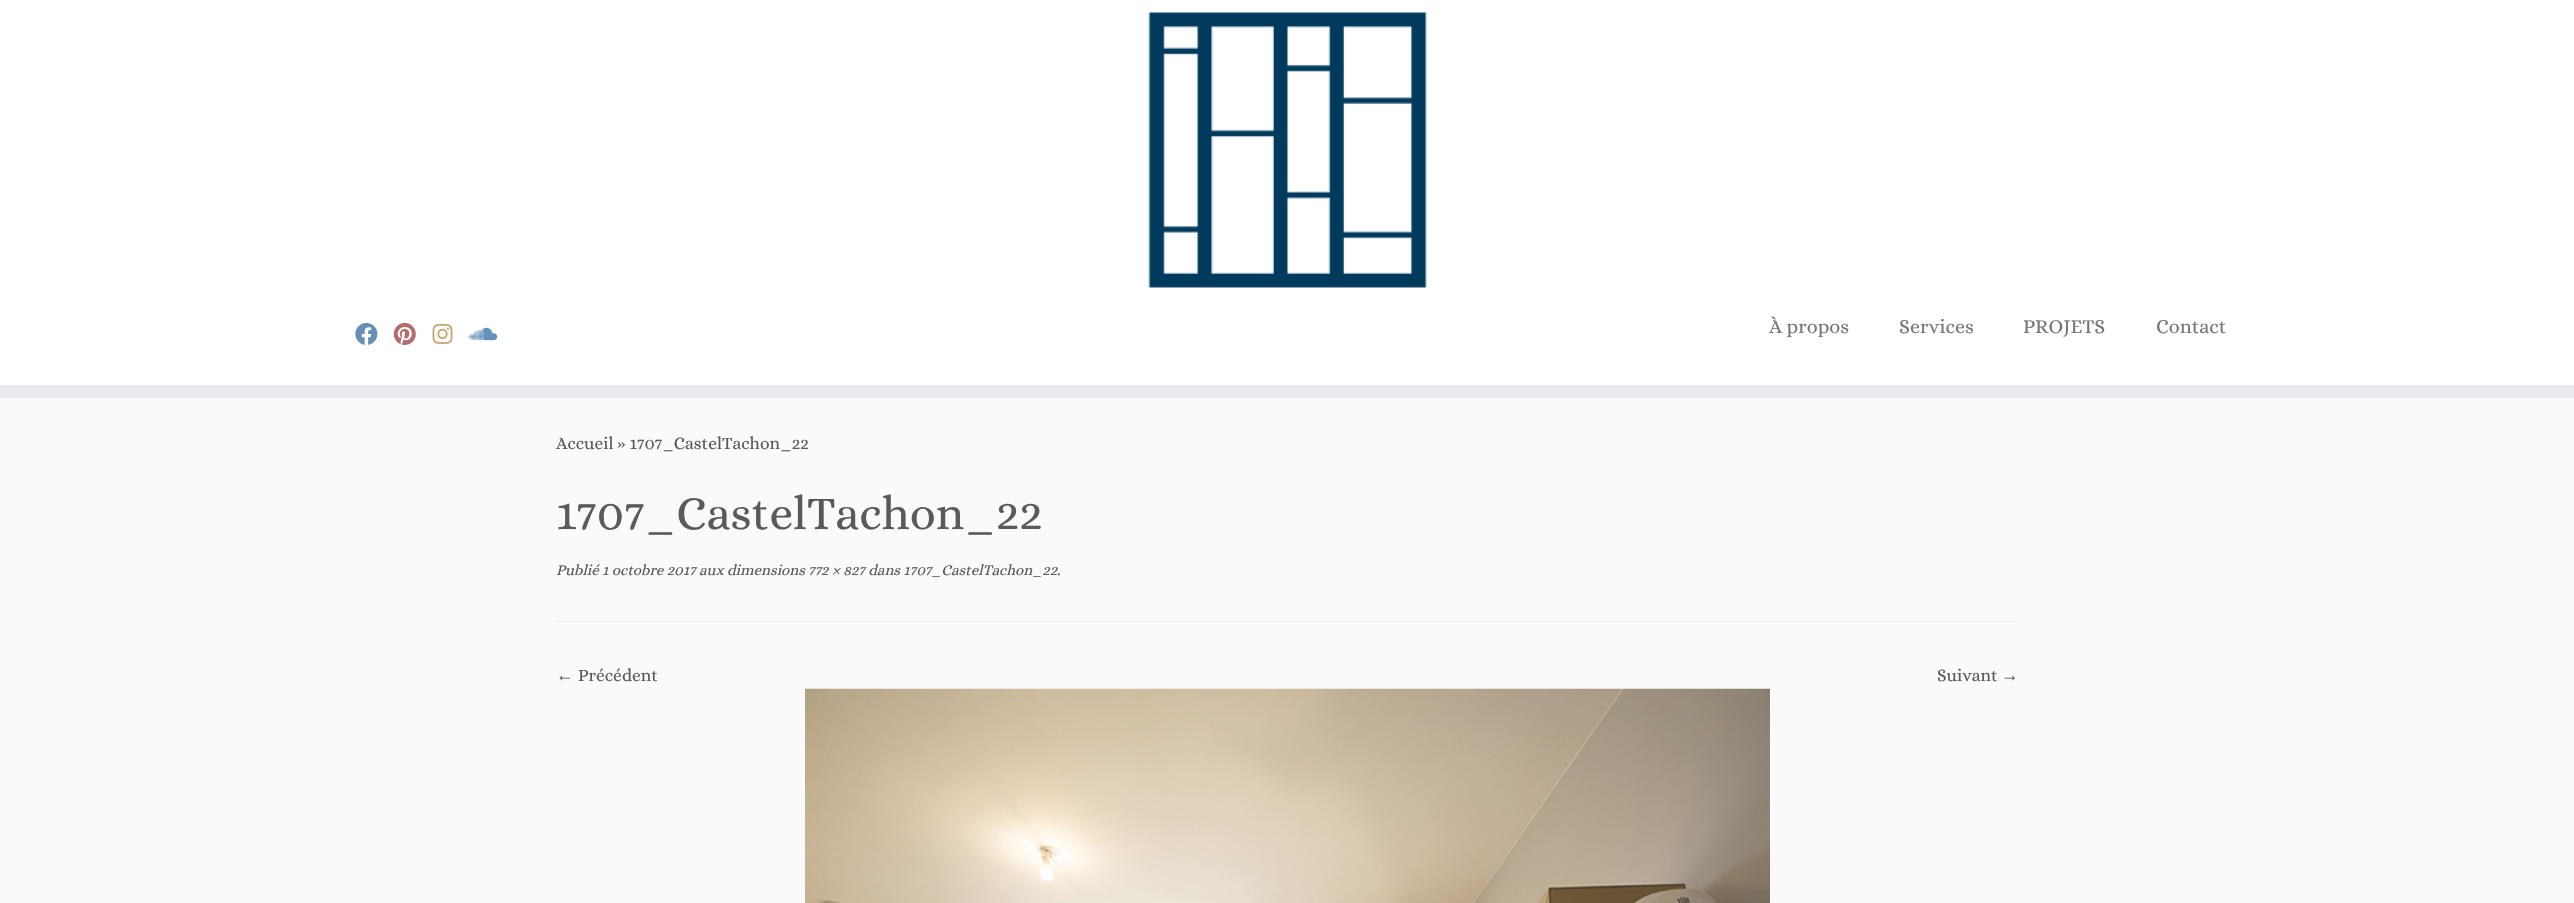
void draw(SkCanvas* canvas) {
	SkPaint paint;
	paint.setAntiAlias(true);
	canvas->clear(0xfffafafa);
	paint.setColor(0xffffffff);
	canvas->drawRect(SkRect::MakeXYWH(0, 0, 2574, 385), paint);
	paint.setColor(0xffe9eaee);
	canvas->drawRect(SkRect::MakeXYWH(0, 385, 2574, 13), paint);
	canvas->drawImageRect(SkImages::DeferredFromEncodedData(SkData::MakeFromFileName("img1.png")), SkRect::MakeXYWH(1148, 12, 279, 276), SkSamplingOptions());
	canvas->drawImageRect(SkImages::DeferredFromEncodedData(SkData::MakeFromFileName("img2.png")), SkRect::MakeXYWH(355, 322, 23, 23), SkSamplingOptions());
	canvas->drawImageRect(SkImages::DeferredFromEncodedData(SkData::MakeFromFileName("img3.png")), SkRect::MakeXYWH(393, 322, 23, 23), SkSamplingOptions());
	canvas->drawImageRect(SkImages::DeferredFromEncodedData(SkData::MakeFromFileName("img4.png")), SkRect::MakeXYWH(432, 324, 21, 20), SkSamplingOptions());
	canvas->drawImageRect(SkImages::DeferredFromEncodedData(SkData::MakeFromFileName("img5.png")), SkRect::MakeXYWH(468, 327, 30, 14), SkSamplingOptions());
	SkFont f1(fontMgr->matchFamilyStyle("Alice", SkFontStyle::Normal()), 20);
	f1.setSubpixel(true);
	paint.setColor(0xff777777);
	canvas->drawString("À propos", 1769, 333, f1, paint);
	canvas->drawString("Services", 1899, 333, f1, paint);
	canvas->drawString("PROJETS", 2023, 333, f1, paint);
	canvas->drawString("Contact", 2156, 333, f1, paint);
	SkFont f2(fontMgr->matchFamilyStyle("Alice", SkFontStyle::Normal()), 17.5);
	f2.setSubpixel(true);
	paint.setColor(0xff5a5a5a);
	canvas->drawString("Accueil » 1707_CastelTachon_22", 556, 449, f2, paint);
	SkFont f3(fontMgr->matchFamilyStyle("Alice", SkFontStyle::Normal()), 47.5);
	f3.setSubpixel(true);
	canvas->drawString("1707_CastelTachon_22", 556, 529, f3, paint);
	SkFont f4(fontMgr->matchFamilyStyle("Alice", SkFontStyle::Italic()), 15);
	f4.setSubpixel(true);
	canvas->drawString("Publié 1 octobre 2017 aux dimensions 772 × 827 dans 1707_CastelTachon_22.", 556, 575, f4, paint);
	paint.setColor(0xffeeeeee);
	canvas->drawRect(SkRect::MakeXYWH(556, 621, 1463, 1), paint);
	paint.setColor(0xffffffff);
	canvas->drawRect(SkRect::MakeXYWH(556, 623, 1463, 1), paint);
	SkFont f5(fontMgr->matchFamilyStyle("Liberation Serif", SkFontStyle::Normal()), 17.5);
	f5.setSubpixel(true);
	paint.setColor(0xff5a5a5a);
	canvas->drawString("←", 556, 681, f5, paint);
	canvas->drawString("Précédent", 578, 681, f2, paint);
	canvas->drawString("Suivant", 1937, 681, f2, paint);
	canvas->drawString("→", 2001, 681, f5, paint);
	canvas->drawImageRect(SkImages::DeferredFromEncodedData(SkData::MakeFromFileName("img6.png")), SkRect::MakeXYWH(805, 688, 965, 215), SkSamplingOptions());
}
